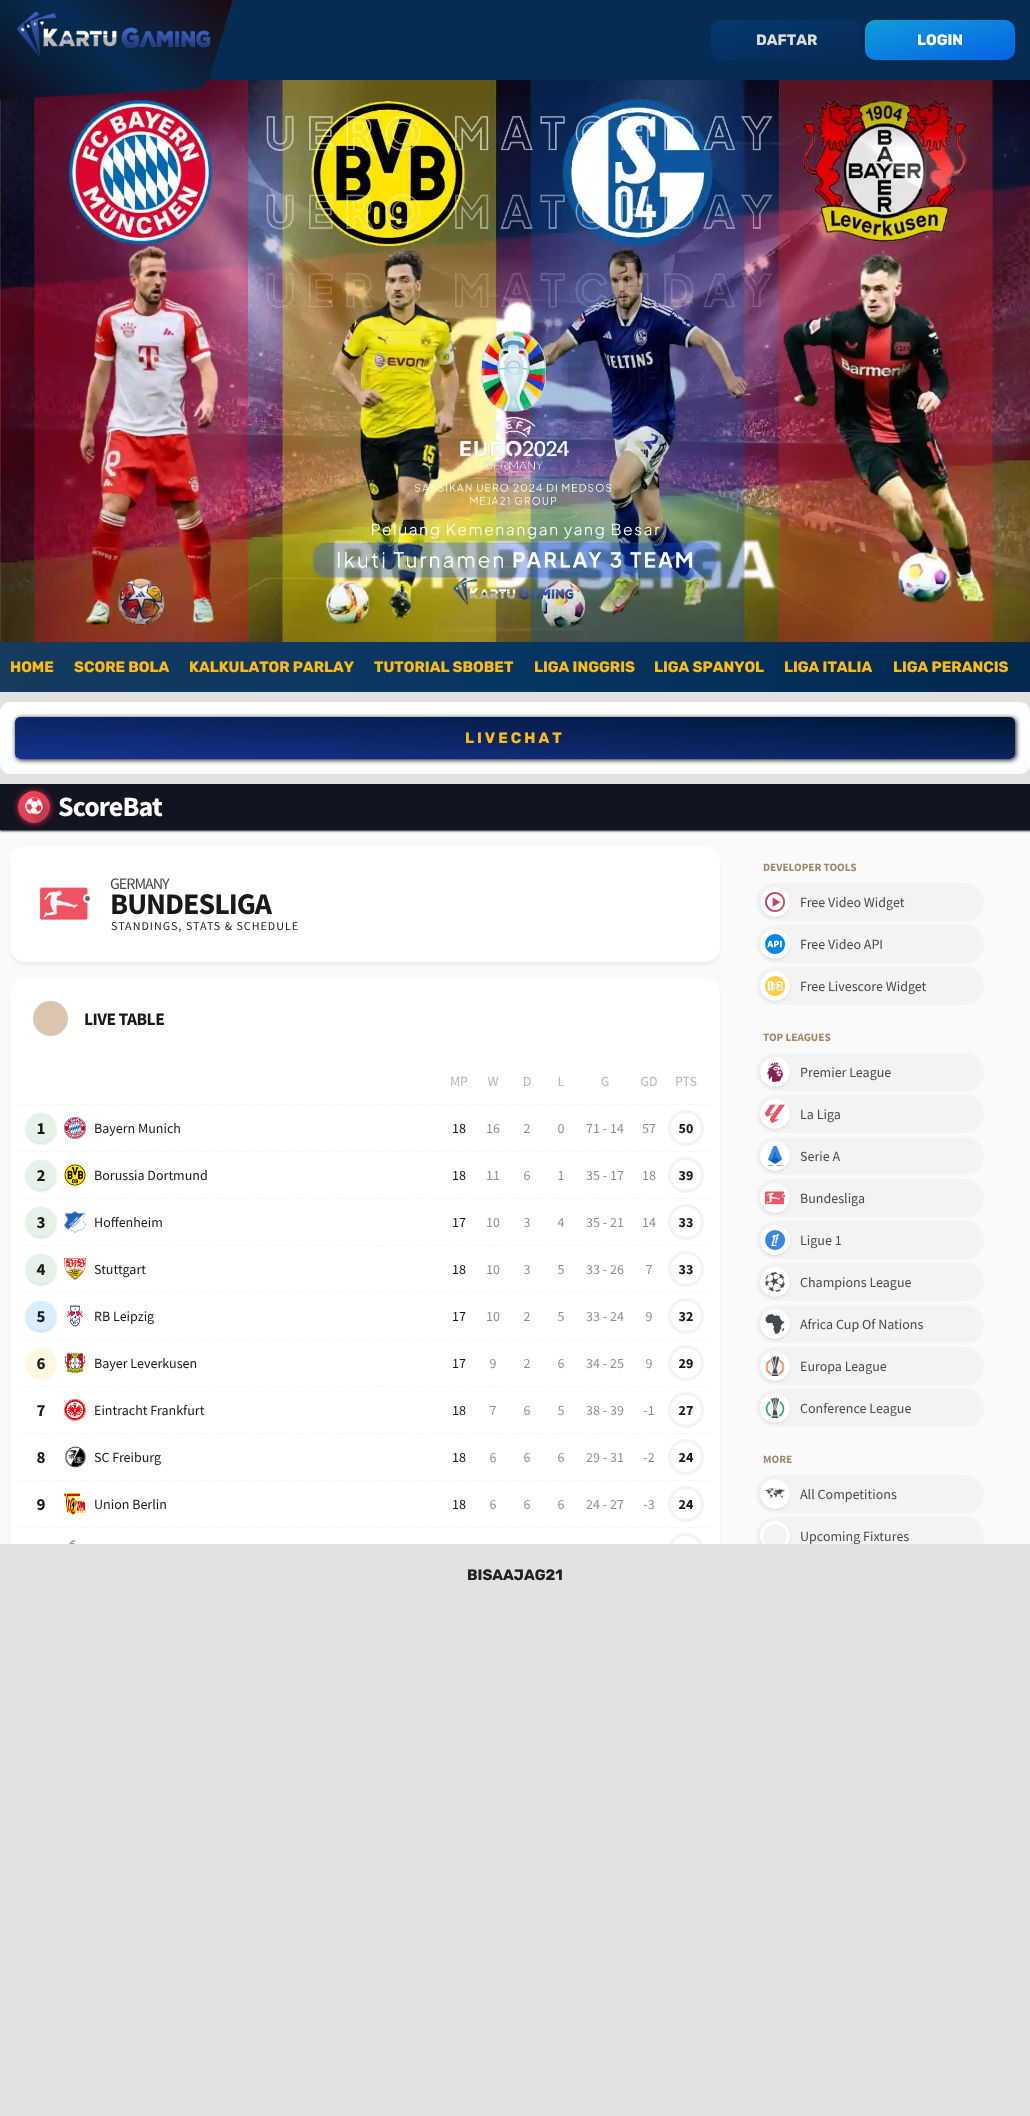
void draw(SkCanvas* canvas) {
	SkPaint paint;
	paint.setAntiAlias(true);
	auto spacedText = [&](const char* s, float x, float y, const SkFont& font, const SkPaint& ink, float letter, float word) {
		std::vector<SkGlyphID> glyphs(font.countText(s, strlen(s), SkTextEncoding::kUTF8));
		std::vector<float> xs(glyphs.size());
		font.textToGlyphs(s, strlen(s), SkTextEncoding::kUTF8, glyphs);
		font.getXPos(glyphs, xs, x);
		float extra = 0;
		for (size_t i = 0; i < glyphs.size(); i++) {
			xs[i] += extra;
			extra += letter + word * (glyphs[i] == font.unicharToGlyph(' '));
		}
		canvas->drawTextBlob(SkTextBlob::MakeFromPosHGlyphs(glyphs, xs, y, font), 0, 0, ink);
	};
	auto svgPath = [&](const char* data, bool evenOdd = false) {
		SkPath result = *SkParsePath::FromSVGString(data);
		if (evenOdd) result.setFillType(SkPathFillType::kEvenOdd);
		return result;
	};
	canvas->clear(0xffe2e2e2);
	paint.setColor(0xff052d53);
	canvas->drawRect(SkRect::MakeXYWH(208, 0, 822, 80), paint);
	canvas->drawImageRect(SkImages::DeferredFromEncodedData(SkData::MakeFromFileName("img2.png")), SkRect::MakeXYWH(0, 80, 1030, 562), SkSamplingOptions());
	{
		const SkColor colors[] = {0xff140000, 0xff052d53, 0xff240000};
		const float stops[] = {0, 0.5, 1};
		const SkPoint ends[] = {{-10, 145}, {180, -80}};
		paint.setShader(SkGradientShader::MakeLinear(ends, colors, stops, 3, SkTileMode::kClamp));
		paint.setAlpha(255);
	}
	canvas->drawPath(svgPath("M-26-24L234-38C240-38 243-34 241-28L209 79C207 84 201 89 196 89L-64 103C-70 103-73 99-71 93L-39-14C-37-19-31-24-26-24Z"), paint);
	canvas->drawImageRect(SkImages::DeferredFromEncodedData(SkData::MakeFromFileName("img1.png")), SkRect::MakeXYWH(17, 11, 194, 47), SkSamplingOptions());
	{
		const SkColor colors[] = {0xff052d53, 0xff053770};
		const float stops[] = {0, 1};
		const SkPoint ends[] = {{796, 77}, {776, 2.7}};
		paint.setShader(SkGradientShader::MakeLinear(ends, colors, stops, 2, SkTileMode::kClamp));
		paint.setAlpha(255);
	}
	canvas->drawRoundRect(SkRect::MakeXYWH(711, 20, 150, 40), 10, 10, paint);
	SkFont f1(fontMgr->matchFamilyStyle("Rubik", SkFontStyle::Bold()), 15);
	f1.setSubpixel(true);
	paint.setShader(nullptr);
	paint.setColor(0xffdddddd);
	canvas->drawString("DAFTAR", 756, 45, f1, paint);
	{
		const SkColor colors[] = {0xff0761e7, 0xff109ed8};
		const float stops[] = {0, 1};
		const SkPoint ends[] = {{950, 77}, {930, 2.7}};
		paint.setShader(SkGradientShader::MakeLinear(ends, colors, stops, 2, SkTileMode::kClamp));
		paint.setAlpha(255);
	}
	canvas->drawRoundRect(SkRect::MakeXYWH(865, 20, 150, 40), 10, 10, paint);
	paint.setShader(nullptr);
	paint.setColor(0xffffffff);
	canvas->drawString("LOGIN", 917, 45, f1, paint);
	{
		const SkColor colors[] = {0xff153b5e, 0xff073663, 0xff02294e};
		const float stops[] = {0, 0.5, 1};
		const SkPoint ends[] = {{0, 667}, {1030, 667}};
		paint.setShader(SkGradientShader::MakeLinear(ends, colors, stops, 3, SkTileMode::kClamp));
		paint.setAlpha(255);
	}
	canvas->drawRect(SkRect::MakeXYWH(0, 642, 1030, 50), paint);
	paint.setShader(nullptr);
	paint.setColor(0xffffbc10);
	canvas->drawString("HOME", 10, 672, f1, paint);
	canvas->drawString("SCORE BOLA", 74, 672, f1, paint);
	canvas->drawString("KALKULATOR PARLAY", 189, 672, f1, paint);
	canvas->drawString("TUTORIAL SBOBET", 374, 672, f1, paint);
	canvas->drawString("LIGA INGGRIS", 534, 672, f1, paint);
	canvas->drawString("LIGA SPANYOL", 654, 672, f1, paint);
	canvas->drawString("LIGA ITALIA", 784, 672, f1, paint);
	canvas->drawString("LIGA PERANCIS", 893, 672, f1, paint);
	paint.setColor(0xffffffff);
	canvas->drawRoundRect(SkRect::MakeXYWH(0, 702, 1030, 72), 10, 10, paint);
	canvas->save();
	canvas->clipPath(svgPath("M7 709H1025V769H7ZM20 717H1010C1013 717 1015 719 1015 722V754C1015 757 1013 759 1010 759H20C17 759 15 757 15 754V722C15 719 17 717 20 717Z", true), true);
	paint.setColor(0xf7000000);
	paint.setMaskFilter(SkMaskFilter::MakeBlur(kNormal_SkBlurStyle, 2.5));
	canvas->drawRoundRect(SkRect::MakeXYWH(16, 718, 1000, 42), 5, 5, paint);
	paint.setMaskFilter(nullptr);
	canvas->restore();
	{
		const SkColor colors[] = {0xf0042685, 0xff011635};
		const float stops[] = {0, 1};
		const SkPoint ends[] = {{513, 780}, {517, 696}};
		paint.setShader(SkGradientShader::MakeLinear(ends, colors, stops, 2, SkTileMode::kClamp));
		paint.setAlpha(255);
	}
	canvas->drawRoundRect(SkRect::MakeXYWH(15, 717, 1000, 42), 5, 5, paint);
	paint.setShader(nullptr);
	paint.setColor(0xffffbc10);
	spacedText("LIVECHAT", 465, 743, f1, paint, 3, 0);
	canvas->drawImageRect(SkImages::DeferredFromEncodedData(SkData::MakeFromFileName("img3.png")), SkRect::MakeXYWH(0, 784, 1030, 760), SkSamplingOptions());
	paint.setColor(0xff222222);
	canvas->drawString("BISAAJAG21", 467, 1580, f1, paint);
}
